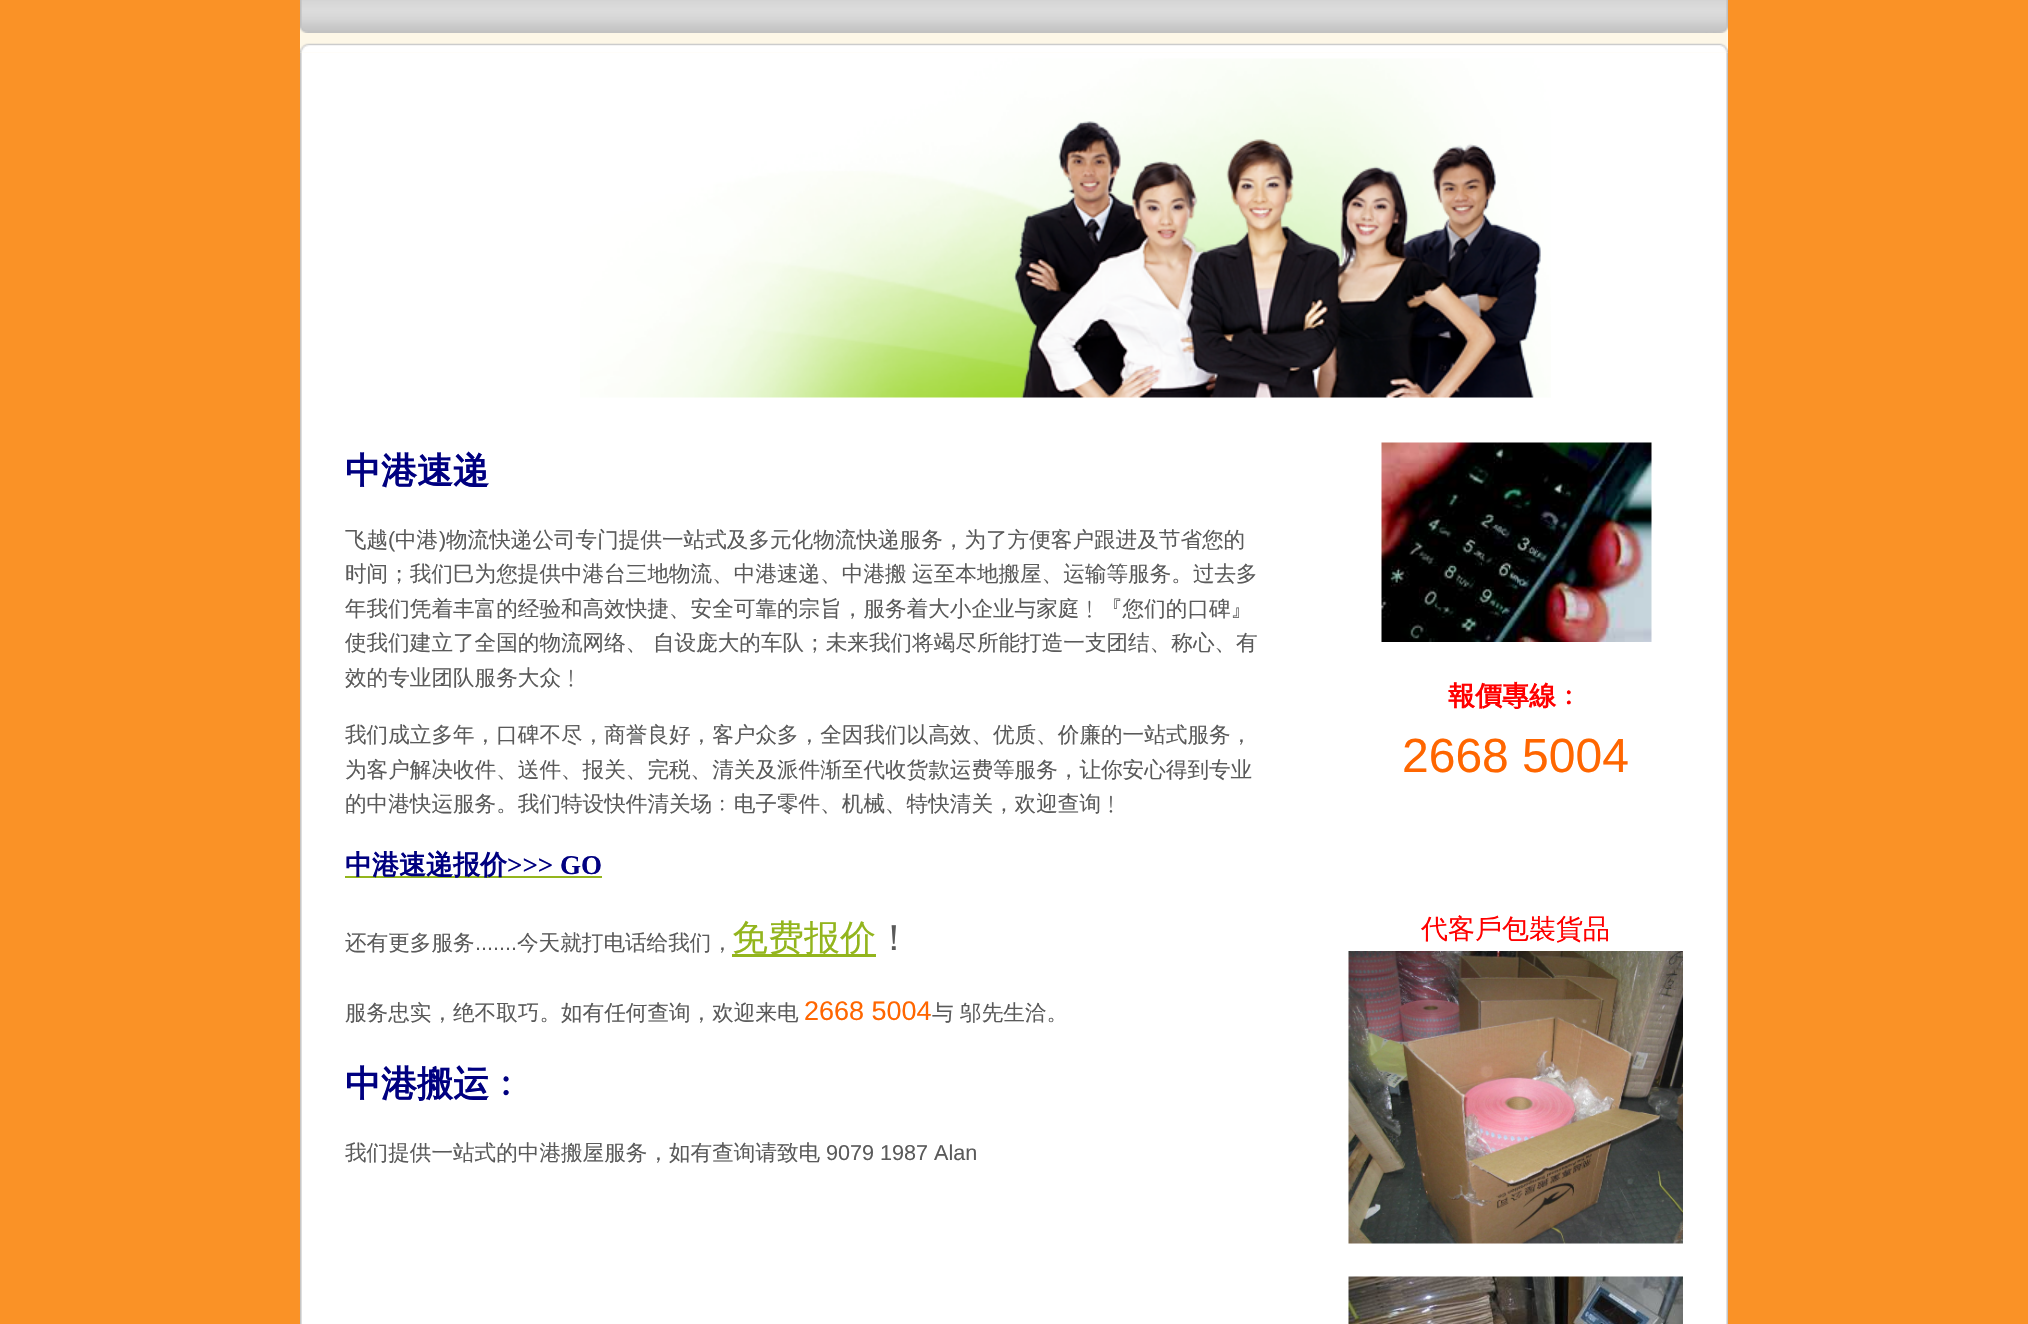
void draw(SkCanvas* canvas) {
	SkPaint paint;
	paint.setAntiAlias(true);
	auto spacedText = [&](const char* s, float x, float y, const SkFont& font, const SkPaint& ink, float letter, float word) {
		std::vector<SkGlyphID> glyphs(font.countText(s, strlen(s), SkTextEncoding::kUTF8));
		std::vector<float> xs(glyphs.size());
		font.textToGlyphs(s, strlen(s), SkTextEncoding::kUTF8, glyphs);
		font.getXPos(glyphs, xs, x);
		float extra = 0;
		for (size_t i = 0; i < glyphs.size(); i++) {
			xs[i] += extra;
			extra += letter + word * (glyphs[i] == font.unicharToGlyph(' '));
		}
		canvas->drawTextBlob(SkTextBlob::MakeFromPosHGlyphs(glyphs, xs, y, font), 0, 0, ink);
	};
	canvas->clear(0xfffa9226);
	paint.setColor(0xfffdf7e7);
	canvas->drawRect(SkRect::MakeXYWH(300, 25, 1428, 28), paint);
	canvas->drawImageRect(SkImages::DeferredFromEncodedData(SkData::MakeFromFileName("img1.png")), SkRect::MakeXYWH(300, 0, 1428, 33), SkSamplingOptions());
	canvas->drawImageRect(SkImages::DeferredFromEncodedData(SkData::MakeFromFileName("img2.png")), SkRect::MakeXYWH(300, 43, 1428, 10), SkSamplingOptions());
	canvas->drawImageRect(SkImages::DeferredFromEncodedData(SkData::MakeFromFileName("img3.png")), SkRect::MakeXYWH(300, 52, 1428, 1272), SkSamplingOptions());
	canvas->drawImageRect(SkImages::DeferredFromEncodedData(SkData::MakeFromFileName("img4.png")), SkRect::MakeXYWH(580, 58, 971, 340), SkSamplingOptions());
	SkFont f1(fontMgr->matchFamilyStyle("WenQuanYi Zen Hei", SkFontStyle::Bold()), 36);
	f1.setSubpixel(true);
	paint.setColor(0xff000080);
	canvas->drawString("中港速递", 345, 483, f1, paint);
	SkFont f2(fontMgr->matchFamilyStyle("WenQuanYi Zen Hei", SkFontStyle(500, SkFontStyle::kNormal_Width, SkFontStyle::kUpright_Slant)), 21.6);
	f2.setSubpixel(true);
	paint.setColor(0xff5a5a5a);
	canvas->drawString("飞越", 345, 547, f2, paint);
	SkFont f3(fontMgr->matchFamilyStyle("Liberation Sans", SkFontStyle::Normal()), 21.6);
	f3.setSubpixel(true);
	canvas->drawString("(", 388, 547, f3, paint);
	canvas->drawString("中港", 395, 547, f2, paint);
	canvas->drawString(")", 439, 547, f3, paint);
	canvas->drawString("物流快递公司专门提供一站式及多元化物流快递服务，为了方便客户跟进及节省您的", 446, 547, f2, paint);
	spacedText("时间；我们巳为您提供中港台三地物流、中港速递、中港搬 运至本地搬屋、运输等服务。过去多", 345, 581, f2, paint, 0, -1);
	canvas->drawString("年我们凭着丰富的经验和高效快捷、安全可靠的宗旨，服务着大小企业与家庭﹗『您们的口碑』", 345, 616, f2, paint);
	spacedText("使我们建立了全国的物流网络、 自设庞大的车队；未来我们将竭尽所能打造一支团结、称心、有", 345, 650, f2, paint, 0, -1);
	canvas->drawString("效的专业团队服务大众﹗", 345, 685, f2, paint);
	canvas->drawString("我们成立多年，口碑不尽，商誉良好，客户众多，全因我们以高效、优质、价廉的一站式服务，", 345, 742, f2, paint);
	canvas->drawString("为客户解决收件、送件、报关、完税、清关及派件渐至代收货款运费等服务，让你安心得到专业", 345, 777, f2, paint);
	canvas->drawString("的中港快运服务。我们特设快件清关场﹕电子零件、机械、特快清关，欢迎查询﹗", 345, 811, f2, paint);
	paint.setColor(0xff93b51d);
	canvas->drawRect(SkRect::MakeXYWH(345, 876, 257, 2), paint);
	SkFont f4(fontMgr->matchFamilyStyle("WenQuanYi Zen Hei", SkFontStyle::Bold()), 27);
	f4.setSubpixel(true);
	paint.setColor(0xff000080);
	canvas->drawString("中港速递报价", 345, 874, f4, paint);
	SkFont f5(fontMgr->matchFamilyStyle("Liberation Serif", SkFontStyle::Bold()), 27);
	f5.setSubpixel(true);
	canvas->drawString(">>> GO", 507, 874, f5, paint);
	paint.setColor(0xff5a5a5a);
	canvas->drawString("还有更多服务", 345, 950, f2, paint);
	canvas->drawString(".......", 475, 950, f3, paint);
	canvas->drawString("今天就打电话给我们，", 517, 950, f2, paint);
	paint.setColor(0xff93b51d);
	canvas->drawRect(SkRect::MakeXYWH(732, 954, 144, 3), paint);
	SkFont f6(fontMgr->matchFamilyStyle("WenQuanYi Zen Hei", SkFontStyle(500, SkFontStyle::kNormal_Width, SkFontStyle::kUpright_Slant)), 36);
	f6.setSubpixel(true);
	canvas->drawString("免费报价", 732, 950, f6, paint);
	paint.setColor(0xff5a5a5a);
	canvas->drawString("！", 876, 950, f6, paint);
	canvas->drawString("服务忠实，绝不取巧。如有任何查询，欢迎来电", 345, 1020, f2, paint);
	SkFont f7(fontMgr->matchFamilyStyle("Liberation Sans", SkFontStyle::Normal()), 27);
	f7.setSubpixel(true);
	paint.setColor(0xffff6600);
	canvas->drawString("2668 5004", 804, 1020, f7, paint);
	paint.setColor(0xff5a5a5a);
	canvas->drawString("与 邬先生洽。", 932, 1020, f2, paint);
	paint.setColor(0xff000080);
	canvas->drawString("中港搬运﹕", 345, 1096, f1, paint);
	paint.setColor(0xff5a5a5a);
	canvas->drawString("我们提供一站式的中港搬屋服务，如有查询请致电", 345, 1160, f2, paint);
	canvas->drawString("9079 1987 Alan", 826, 1160, f3, paint);
	canvas->drawImageRect(SkImages::DeferredFromEncodedData(SkData::MakeFromFileName("img5.png")), SkRect::MakeXYWH(1381, 442, 271, 200), SkSamplingOptions());
	paint.setColor(0xffff0000);
	canvas->drawString("報價專線﹕", 1448, 705, f4, paint);
	SkFont f8(fontMgr->matchFamilyStyle("Liberation Sans", SkFontStyle::Normal()), 48);
	f8.setSubpixel(true);
	paint.setColor(0xffff6600);
	canvas->drawString("2668 5004", 1402, 772, f8, paint);
	SkFont f9(fontMgr->matchFamilyStyle("WenQuanYi Zen Hei", SkFontStyle(500, SkFontStyle::kNormal_Width, SkFontStyle::kUpright_Slant)), 27);
	f9.setSubpixel(true);
	paint.setColor(0xffff0000);
	canvas->drawString("代客戶包裝貨品", 1421, 938, f9, paint);
	canvas->drawImageRect(SkImages::DeferredFromEncodedData(SkData::MakeFromFileName("img6.png")), SkRect::MakeXYWH(1348, 951, 335, 293), SkSamplingOptions());
	canvas->drawImageRect(SkImages::DeferredFromEncodedData(SkData::MakeFromFileName("img7.png")), SkRect::MakeXYWH(1348, 1276, 335, 48), SkSamplingOptions());
}
